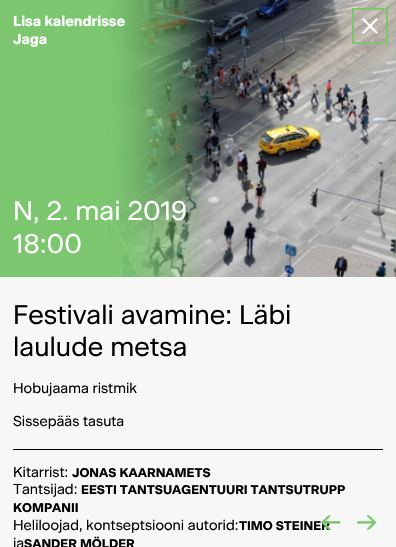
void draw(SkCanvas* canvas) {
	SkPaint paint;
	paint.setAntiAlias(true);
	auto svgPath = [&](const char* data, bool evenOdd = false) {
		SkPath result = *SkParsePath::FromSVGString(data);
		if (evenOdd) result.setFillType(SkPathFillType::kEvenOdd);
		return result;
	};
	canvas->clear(0xfff7f7f7);
	paint.setColor(0xff7cc670);
	canvas->drawRect(SkRect::MakeXYWH(0, 0, 396, 277), paint);
	canvas->drawImageRect(SkImages::DeferredFromEncodedData(SkData::MakeFromFileName("img2.png")), SkRect::MakeXYWH(102, 0, 294, 277), SkSamplingOptions());
	canvas->drawImageRect(SkImages::DeferredFromEncodedData(SkData::MakeFromFileName("img1.png")), SkRect::MakeXYWH(94, 0, 112, 277), SkSamplingOptions());
	SkFont f1(fontMgr->matchFamilyStyle("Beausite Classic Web", SkFontStyle::Bold()), 14.3);
	f1.setSubpixel(true);
	paint.setColor(0xffffffff);
	canvas->drawString("Lisa kalendrisse", 13, 26, f1, paint);
	canvas->drawString("Jaga", 13, 44, f1, paint);
	SkFont f2(fontMgr->matchFamilyStyle("Beausite Classic Web", SkFontStyle(300, SkFontStyle::kNormal_Width, SkFontStyle::kUpright_Slant)), 26.9);
	f2.setSubpixel(true);
	canvas->drawString("N, 2. mai 2019", 13, 220, f2, paint);
	canvas->drawString("18:00", 13, 253, f2, paint);
	paint.setStroke(true);
	paint.setStrokeWidth(2);
	paint.setColor(0xff7cc670);
	canvas->drawRect(SkRect::MakeXYWH(353, 9, 34, 34), paint);
	paint.setStroke(false);
	paint.setColor(0xffffffff);
	canvas->drawPath(svgPath("M363.5 18L378 32.5L376.5 34L362 19.5Z"), paint);
	canvas->drawPath(svgPath("M362 32.5L376.5 18L378 19.5L363.5 34Z"), paint);
	paint.setColor(0xff000000);
	canvas->drawString("Festivali avamine: Läbi", 13, 324, f2, paint);
	canvas->drawString("laulude metsa", 13, 356, f2, paint);
	SkFont f3(fontMgr->matchFamilyStyle("Beausite Classic Web", SkFontStyle(300, SkFontStyle::kNormal_Width, SkFontStyle::kUpright_Slant)), 14.3);
	f3.setSubpixel(true);
	canvas->drawString("Hobujaama ristmik", 13, 393, f3, paint);
	canvas->drawString("Sissepääs tasuta", 13, 426, f3, paint);
	canvas->drawRect(SkRect::MakeXYWH(13, 449, 370, 1), paint);
	canvas->drawString("Kitarrist:", 13, 477, f3, paint);
	SkFont f4(fontMgr->matchFamilyStyle("Beausite Classic Web", SkFontStyle::Bold()), 12.55);
	f4.setSubpixel(true);
	canvas->drawString("JONAS KAARNAMETS", 72, 477, f4, paint);
	canvas->drawString("Tantsijad:", 13, 494, f3, paint);
	canvas->drawString("EESTI TANTSUAGENTUURI TANTSUTRUPP", 81, 494, f4, paint);
	canvas->drawString("KOMPANII", 13, 512, f4, paint);
	canvas->drawString("Heliloojad, kontseptsiooni autorid:", 13, 530, f3, paint);
	canvas->drawString("TIMO STEINER", 239, 530, f4, paint);
	canvas->drawString("ja", 13, 548, f3, paint);
	canvas->drawString("SANDER MÖLDER", 24, 548, f4, paint);
	paint.setColor(0xff7cc670);
	canvas->drawString("←", 320, 532, f2, paint);
	canvas->drawString("→", 356, 532, f2, paint);
}
